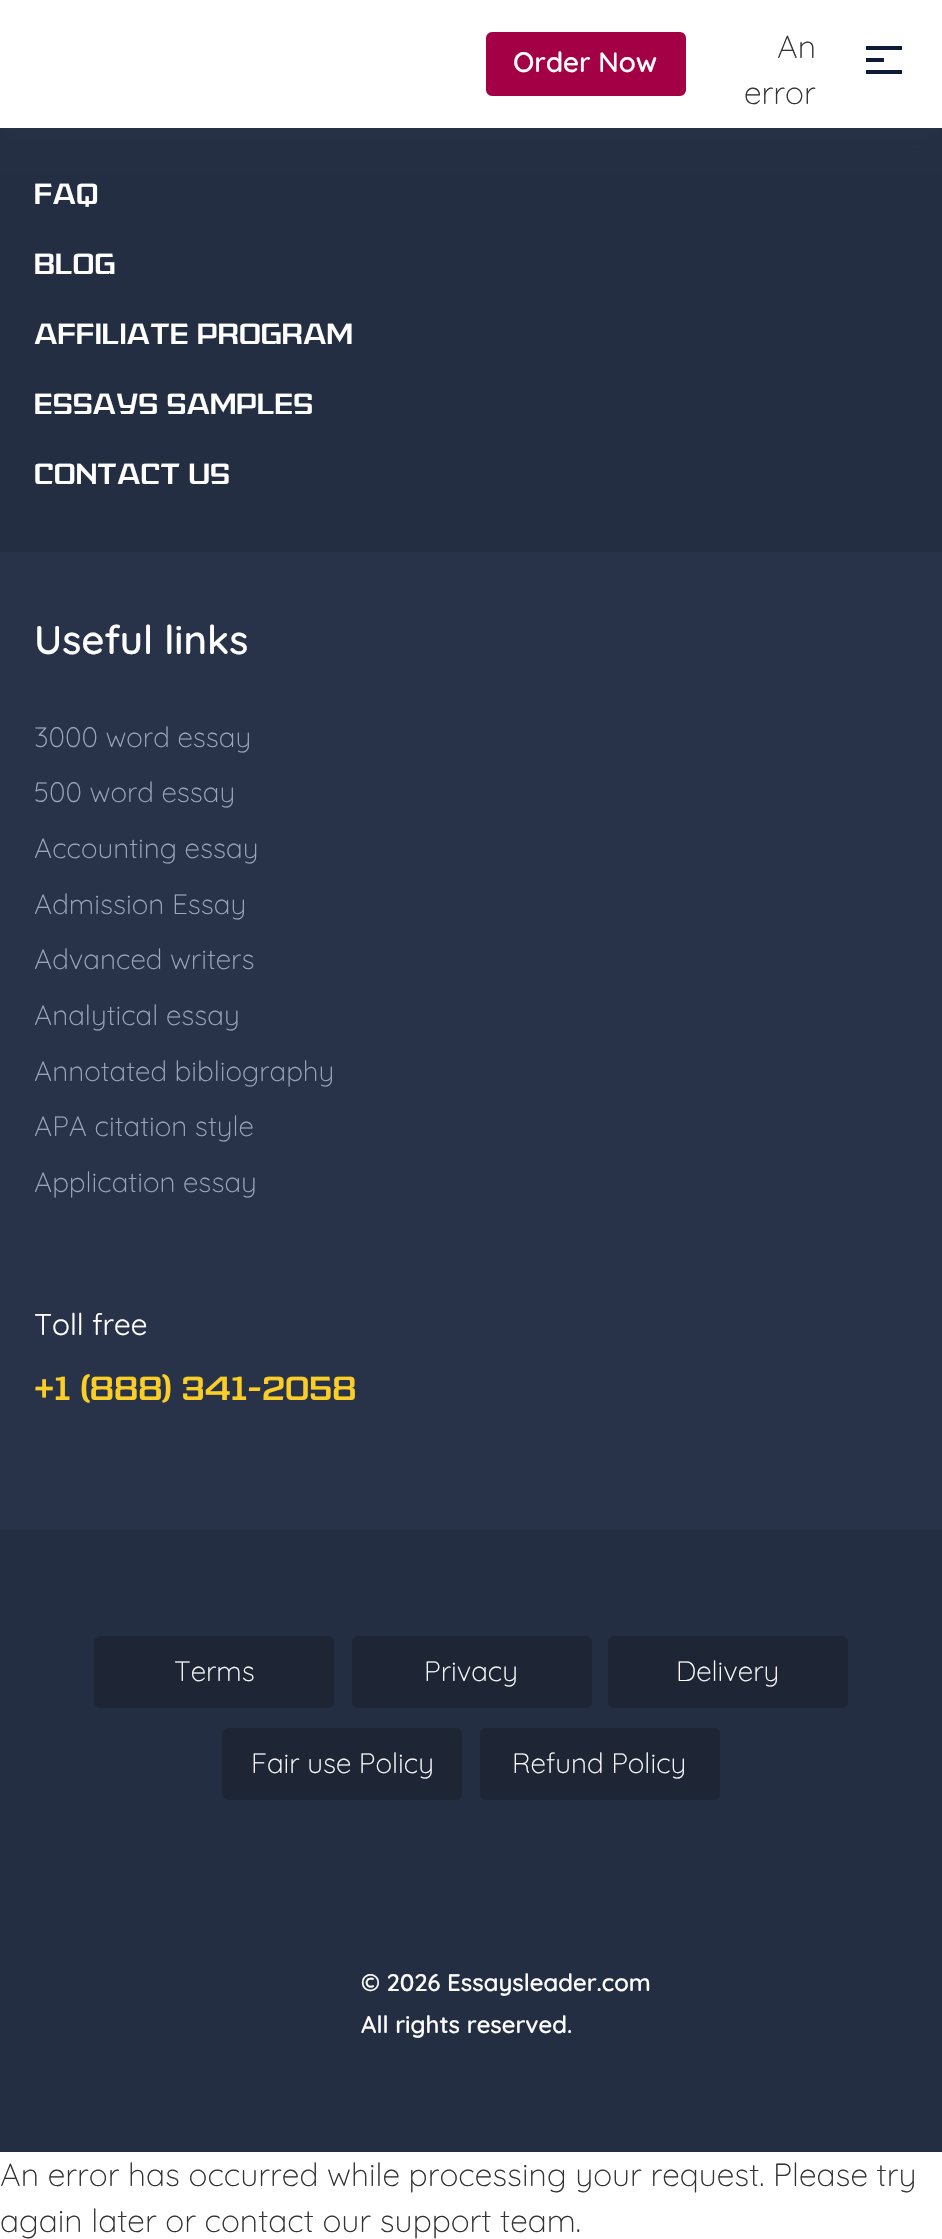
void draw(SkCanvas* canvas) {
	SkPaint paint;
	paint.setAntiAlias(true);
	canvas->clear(0xffffffff);
	paint.setColor(0xff242e43);
	canvas->drawRect(SkRect::MakeXYWH(0, 128, 942, 424), paint);
	paint.setColor(0x1a636363);
	paint.setMaskFilter(SkMaskFilter::MakeBlur(kNormal_SkBlurStyle, 15));
	canvas->drawRect(SkRect::MakeXYWH(0, 0, 942, 128), paint);
	paint.setMaskFilter(nullptr);
	paint.setColor(0xffffffff);
	canvas->drawRect(SkRect::MakeXYWH(0, 0, 942, 128), paint);
	paint.setColor(0xffa40045);
	canvas->drawRoundRect(SkRect::MakeXYWH(487, 33, 198, 62), 5, 5, paint);
	paint.setStroke(true);
	paint.setStrokeWidth(2);
	canvas->drawRoundRect(SkRect::MakeXYWH(487, 33, 198, 62), 5, 5, paint);
	SkFont f1(fontMgr->matchFamilyStyle("Quicksand", SkFontStyle(500, SkFontStyle::kNormal_Width, SkFontStyle::kUpright_Slant)), 28);
	f1.setSubpixel(true);
	paint.setStroke(false);
	paint.setColor(0xffffffff);
	canvas->drawString("Order Now", 513, 72, f1, paint);
	SkFont f2(fontMgr->matchFamilyStyle("Quicksand", SkFontStyle(300, SkFontStyle::kNormal_Width, SkFontStyle::kUpright_Slant)), 32);
	f2.setSubpixel(true);
	paint.setColor(0xff333333);
	canvas->drawString("An", 777, 58, f2, paint);
	canvas->drawString("error", 744, 104, f2, paint);
	paint.setColor(0xff0f1a36);
	canvas->drawRect(SkRect::MakeXYWH(866, 46, 36, 4), paint);
	canvas->drawRect(SkRect::MakeXYWH(866, 58, 18, 4), paint);
	canvas->drawRect(SkRect::MakeXYWH(866, 70, 36, 4), paint);
	paint.setColor(0xff283349);
	canvas->drawRect(SkRect::MakeXYWH(0, 552, 942, 978), paint);
	SkFont f3(fontMgr->matchFamilyStyle("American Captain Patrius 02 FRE", SkFontStyle::Normal()), 28);
	f3.setSubpixel(true);
	paint.setColor(0xffffffff);
	canvas->drawString("FAQ", 34, 204, f3, paint);
	canvas->drawString("BLOG", 34, 274, f3, paint);
	canvas->drawString("AFFILIATE PROGRAM", 34, 344, f3, paint);
	canvas->drawString("ESSAYS SAMPLES", 34, 414, f3, paint);
	canvas->drawString("CONTACT US", 34, 484, f3, paint);
	SkFont f4(fontMgr->matchFamilyStyle("Quicksand", SkFontStyle(500, SkFontStyle::kNormal_Width, SkFontStyle::kUpright_Slant)), 40);
	f4.setSubpixel(true);
	canvas->drawString("Useful links", 34, 654, f4, paint);
	SkFont f5(fontMgr->matchFamilyStyle("Quicksand", SkFontStyle(300, SkFontStyle::kNormal_Width, SkFontStyle::kUpright_Slant)), 28);
	f5.setSubpixel(true);
	paint.setColor(0xff9ba5bc);
	canvas->drawString("3000 word essay", 34, 747, f5, paint);
	canvas->drawString("500 word essay", 34, 802, f5, paint);
	canvas->drawString("Accounting essay", 34, 858, f5, paint);
	canvas->drawString("Admission Essay", 34, 914, f5, paint);
	canvas->drawString("Advanced writers", 34, 969, f5, paint);
	canvas->drawString("Analytical essay", 34, 1025, f5, paint);
	canvas->drawString("Annotated bibliography", 34, 1081, f5, paint);
	canvas->drawString("APA citation style", 34, 1136, f5, paint);
	canvas->drawString("Application essay", 34, 1192, f5, paint);
	SkFont f6(fontMgr->matchFamilyStyle("Quicksand", SkFontStyle::Normal()), 30);
	f6.setSubpixel(true);
	paint.setColor(0xffffffff);
	canvas->drawString("Toll free", 34, 1335, f6, paint);
	SkFont f7(fontMgr->matchFamilyStyle("American Captain Patrius 02 FRE", SkFontStyle::Normal()), 32);
	f7.setSubpixel(true);
	paint.setColor(0xfffbce27);
	canvas->drawString("+1 (888) 341-2058", 34, 1400, f7, paint);
	paint.setColor(0xff242e43);
	canvas->drawRect(SkRect::MakeXYWH(0, 1530, 942, 622), paint);
	paint.setColor(0xff1e2635);
	canvas->drawRoundRect(SkRect::MakeXYWH(94, 1636, 240, 72), 6, 6, paint);
	paint.setColor(0xffffffff);
	canvas->drawString("Terms", 174, 1681, f5, paint);
	paint.setColor(0xff1e2635);
	canvas->drawRoundRect(SkRect::MakeXYWH(352, 1636, 240, 72), 6, 6, paint);
	paint.setColor(0xffffffff);
	canvas->drawString("Privacy", 424, 1681, f5, paint);
	paint.setColor(0xff1e2635);
	canvas->drawRoundRect(SkRect::MakeXYWH(608, 1636, 240, 72), 6, 6, paint);
	paint.setColor(0xffffffff);
	canvas->drawString("Delivery", 676, 1681, f5, paint);
	paint.setColor(0xff1e2635);
	canvas->drawRoundRect(SkRect::MakeXYWH(222, 1728, 240, 72), 6, 6, paint);
	paint.setColor(0xffffffff);
	canvas->drawString("Fair use Policy", 251, 1773, f5, paint);
	paint.setColor(0xff1e2635);
	canvas->drawRoundRect(SkRect::MakeXYWH(480, 1728, 240, 72), 6, 6, paint);
	paint.setColor(0xffffffff);
	canvas->drawString("Refund Policy", 512, 1773, f5, paint);
	SkFont f8(fontMgr->matchFamilyStyle("Quicksand", SkFontStyle(500, SkFontStyle::kNormal_Width, SkFontStyle::kUpright_Slant)), 24);
	f8.setSubpixel(true);
	canvas->drawString("© 2026 Essaysleader.com", 361, 1991, f8, paint);
	canvas->drawString("All rights reserved.", 361, 2033, f8, paint);
	paint.setColor(0xff333333);
	canvas->drawString("An error has occurred while processing your request. Please try", 0, 2186, f2, paint);
	canvas->drawString("again later or contact our support team.", 0, 2232, f2, paint);
}
